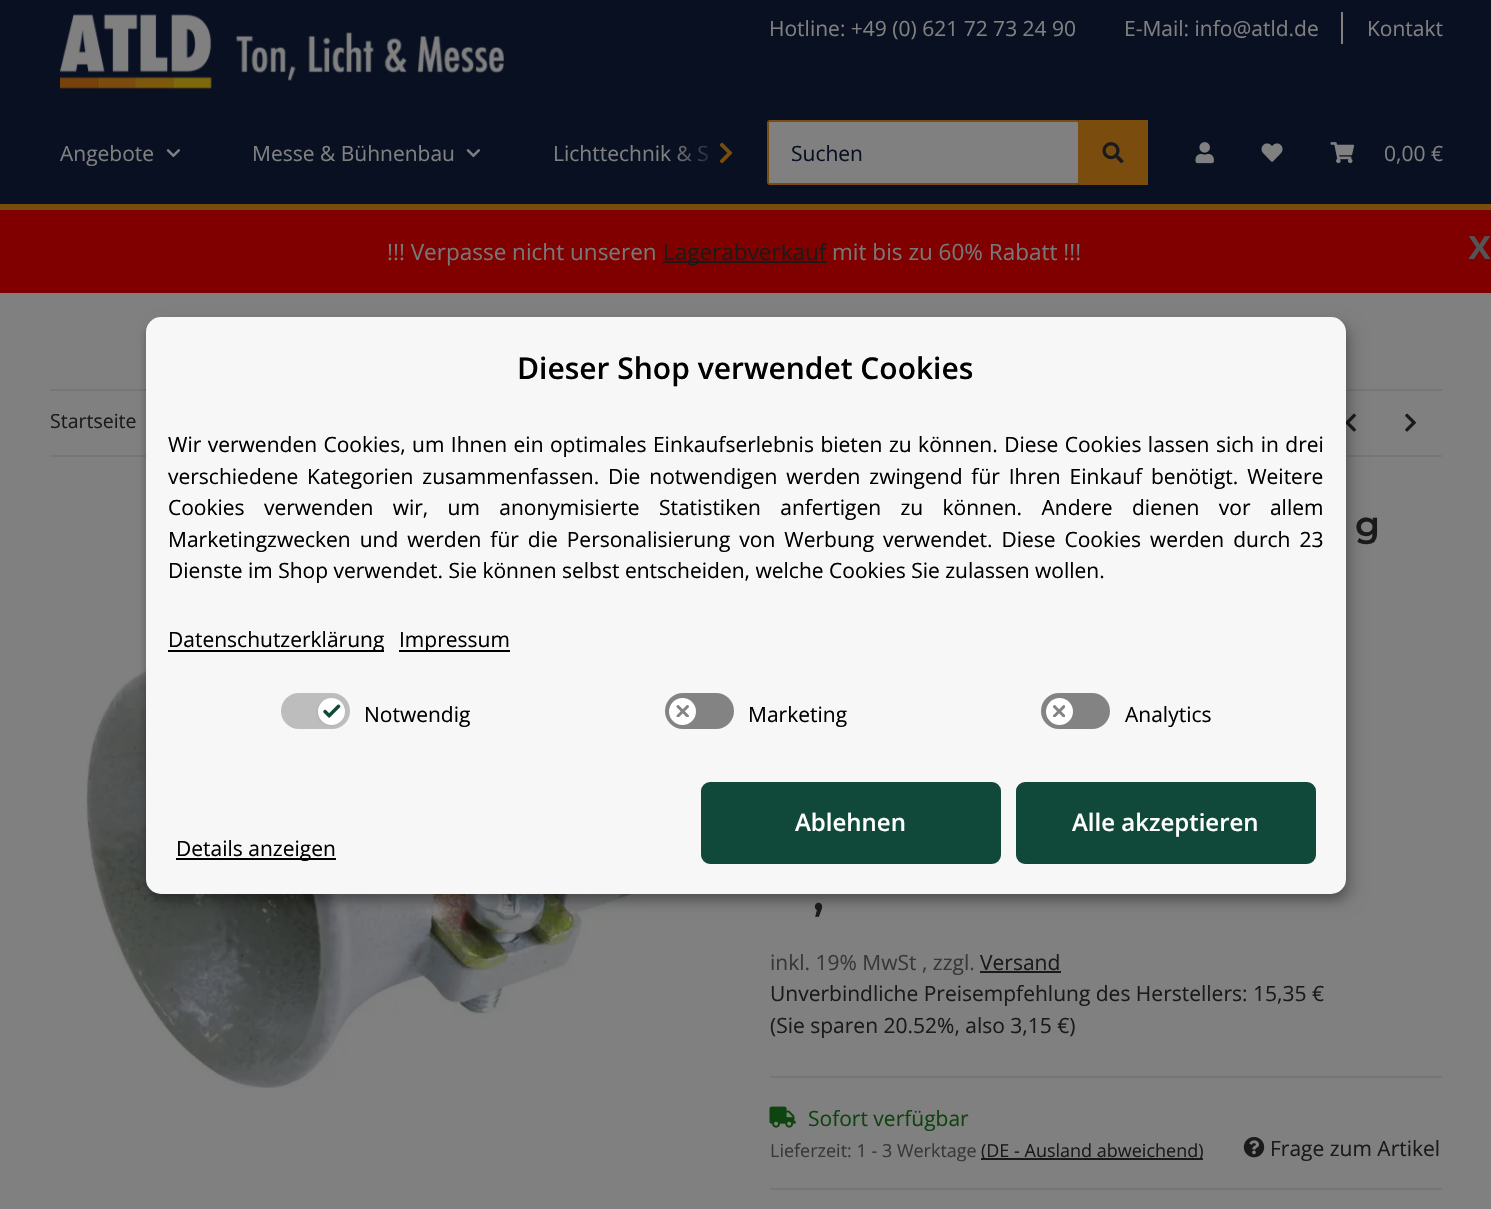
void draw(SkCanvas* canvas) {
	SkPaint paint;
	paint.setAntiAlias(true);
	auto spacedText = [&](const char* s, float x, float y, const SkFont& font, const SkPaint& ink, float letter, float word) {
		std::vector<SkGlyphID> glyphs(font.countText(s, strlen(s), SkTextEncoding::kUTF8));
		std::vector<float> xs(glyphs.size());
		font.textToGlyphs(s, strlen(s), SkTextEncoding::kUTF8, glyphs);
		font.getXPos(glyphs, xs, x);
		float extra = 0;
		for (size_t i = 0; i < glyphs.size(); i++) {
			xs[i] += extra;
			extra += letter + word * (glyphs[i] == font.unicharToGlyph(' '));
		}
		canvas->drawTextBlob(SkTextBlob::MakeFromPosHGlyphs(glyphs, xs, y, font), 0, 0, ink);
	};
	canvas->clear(0xff800000);
	paint.setColor(0xff081022);
	canvas->drawRect(SkRect::MakeXYWH(0, 0, 1491, 204), paint);
	SkFont f1(fontMgr->matchFamilyStyle("Open Sans", SkFontStyle::Normal()), 21);
	f1.setSubpixel(true);
	paint.setColor(0xff808080);
	canvas->drawString("Hotline: +49 (0) 621 72 73 24 90", 769, 36, f1, paint);
	canvas->drawString("E-Mail: info@atld.de", 1124, 36, f1, paint);
	canvas->drawRect(SkRect::MakeXYWH(1341, 12, 2, 32), paint);
	canvas->drawString("Kontakt", 1367, 36, f1, paint);
	paint.setColor(0xff7a4d0f);
	canvas->drawRect(SkRect::MakeXYWH(0, 204, 1491, 6), paint);
	canvas->drawImageRect(SkImages::DeferredFromEncodedData(SkData::MakeFromFileName("img1.png")), SkRect::MakeXYWH(60, 14, 444, 75), SkSamplingOptions());
	paint.setColor(0xff808080);
	canvas->drawString("Lichttechnik & S", 553, 161, f1, paint);
	{
		const SkColor colors[] = {0x03081022, 0xff081022};
		const float stops[] = {0, 0.7};
		const SkPoint ends[] = {{671, 153}, {743, 153}};
		paint.setShader(SkGradientShader::MakeLinear(ends, colors, stops, 2, SkTileMode::kClamp));
		paint.setAlpha(255);
	}
	canvas->drawRect(SkRect::MakeXYWH(677, 145, 31, 17), paint);
	canvas->drawImageRect(SkImages::DeferredFromEncodedData(SkData::MakeFromFileName("img2.png")), SkRect::MakeXYWH(719, 142, 14, 22), SkSamplingOptions());
	paint.setShader(nullptr);
	paint.setColor(0xff808080);
	canvas->drawString("Angebote", 60, 161, f1, paint);
	canvas->drawImageRect(SkImages::DeferredFromEncodedData(SkData::MakeFromFileName("img3.png")), SkRect::MakeXYWH(166, 149, 15, 9), SkSamplingOptions());
	canvas->drawString("Messe & Bühnenbau", 252, 161, f1, paint);
	canvas->drawImageRect(SkImages::DeferredFromEncodedData(SkData::MakeFromFileName("img3.png")), SkRect::MakeXYWH(466, 149, 15, 9), SkSamplingOptions());
	canvas->drawRect(SkRect::MakeXYWH(769, 122, 309, 61), paint);
	paint.setStroke(true);
	paint.setStrokeWidth(2);
	paint.setColor(0xff7a4d0f);
	canvas->drawRoundRect(SkRect::MakeXYWH(768, 121, 311, 63), 2, 2, paint);
	paint.setStroke(false);
	paint.setColor(0xff081022);
	canvas->drawString("Suchen", 791, 161, f1, paint);
	paint.setColor(0xff7a4d0f);
	canvas->drawRect(SkRect::MakeXYWH(1079, 120, 69, 65), paint);
	canvas->drawImageRect(SkImages::DeferredFromEncodedData(SkData::MakeFromFileName("img4.png")), SkRect::MakeXYWH(1102, 142, 22, 22), SkSamplingOptions());
	canvas->drawImageRect(SkImages::DeferredFromEncodedData(SkData::MakeFromFileName("img5.png")), SkRect::MakeXYWH(1195, 142, 19, 22), SkSamplingOptions());
	canvas->drawImageRect(SkImages::DeferredFromEncodedData(SkData::MakeFromFileName("img6.png")), SkRect::MakeXYWH(1261, 143, 22, 19), SkSamplingOptions());
	canvas->drawImageRect(SkImages::DeferredFromEncodedData(SkData::MakeFromFileName("img7.png")), SkRect::MakeXYWH(1330, 142, 25, 22), SkSamplingOptions());
	paint.setColor(0xff808080);
	canvas->drawString("0,00 €", 1384, 161, f1, paint);
	SkFont f2(fontMgr->matchFamilyStyle("Open Sans", SkFontStyle::Normal()), 22.5);
	f2.setSubpixel(true);
	paint.setColor(0xff767879);
	canvas->drawString("!!! Verpasse nicht unseren", 387, 260, f2, paint);
	paint.setColor(0xff1a1a1a);
	canvas->drawRect(SkRect::MakeXYWH(663, 261, 164, 2), paint);
	canvas->drawString("Lagerabverkauf", 663, 260, f2, paint);
	paint.setColor(0xff767879);
	canvas->drawString("mit bis zu 60% Rabatt !!!", 832, 260, f2, paint);
	SkFont f3(fontMgr->matchFamilyStyle("Open Sans", SkFontStyle(600, SkFontStyle::kNormal_Width, SkFontStyle::kUpright_Slant)), 42);
	f3.setSubpixel(true);
	paint.setColor(0xff555555);
	canvas->drawString("x", 1468, 259, f3, paint);
	paint.setColor(0xff808080);
	canvas->drawRect(SkRect::MakeXYWH(0, 293, 1491, 916), paint);
	paint.setColor(0xff767676);
	canvas->drawRect(SkRect::MakeXYWH(50, 389, 1392, 2), paint);
	canvas->drawRect(SkRect::MakeXYWH(50, 455, 1392, 2), paint);
	canvas->drawImageRect(SkImages::DeferredFromEncodedData(SkData::MakeFromFileName("img11.png")), SkRect::MakeXYWH(1346, 413, 10, 19), SkSamplingOptions());
	canvas->drawImageRect(SkImages::DeferredFromEncodedData(SkData::MakeFromFileName("img13.png")), SkRect::MakeXYWH(86, 604, 612, 485), SkSamplingOptions());
	paint.setColor(0x30000000);
	paint.setMaskFilter(SkMaskFilter::MakeBlur(kNormal_SkBlurStyle, 7.5));
	canvas->drawRoundRect(SkRect::MakeXYWH(153, 324, 1200, 578), 15, 15, paint);
	paint.setMaskFilter(nullptr);
	paint.setColor(0x33000000);
	paint.setMaskFilter(SkMaskFilter::MakeBlur(kNormal_SkBlurStyle, 4.5));
	canvas->drawRoundRect(SkRect::MakeXYWH(146, 323, 1200, 577), 15, 15, paint);
	paint.setMaskFilter(nullptr);
	paint.setColor(0xfff8f7f7);
	canvas->drawRoundRect(SkRect::MakeXYWH(146, 317, 1200, 577), 15, 15, paint);
	SkFont f4(fontMgr->matchFamilyStyle("Open Sans", SkFontStyle(600, SkFontStyle::kNormal_Width, SkFontStyle::kUpright_Slant)), 30);
	f4.setSubpixel(true);
	paint.setColor(0xff000000);
	canvas->drawString("Dieser Shop verwendet Cookies", 517, 379, f4, paint);
	spacedText("Wir verwenden Cookies, um Ihnen ein optimales Einkaufserlebnis bieten zu können. Diese Cookies lassen sich in drei", 168, 452, f1, paint, 0, 1);
	spacedText("verschiedene Kategorien zusammenfassen. Die notwendigen werden zwingend für Ihren Einkauf benötigt. Weitere", 168, 484, f1, paint, 0, 3.4);
	spacedText("Cookies verwenden wir, um anonymisierte Statistiken anfertigen zu können. Andere dienen vor allem", 168, 515, f1, paint, 0, 13.9);
	spacedText("Marketingzwecken und werden für die Personalisierung von Werbung verwendet. Diese Cookies werden durch 23", 168, 547, f1, paint, 0, 3.5);
	canvas->drawString("Dienste im Shop verwendet. Sie können selbst entscheiden, welche Cookies Sie zulassen wollen.", 168, 578, f1, paint);
	canvas->drawRect(SkRect::MakeXYWH(168, 650, 216, 2), paint);
	canvas->drawString("Datenschutzerklärung", 168, 647, f1, paint);
	canvas->drawRect(SkRect::MakeXYWH(399, 650, 111, 2), paint);
	canvas->drawString("Impressum", 399, 647, f1, paint);
	paint.setColor(0xffbdbdbd);
	canvas->drawRoundRect(SkRect::MakeXYWH(281, 693, 69, 36), 18, 18, paint);
	paint.setColor(0x73a3a3a3);
	paint.setMaskFilter(SkMaskFilter::MakeBlur(kNormal_SkBlurStyle, 1.5));
	canvas->drawRoundRect(SkRect::MakeXYWH(317, 699, 27, 27), 13.5, 13.5, paint);
	paint.setMaskFilter(nullptr);
	paint.setColor(0xffffffff);
	canvas->drawCircle(331.5, 711.5, 13.5, paint);
	canvas->drawImageRect(SkImages::DeferredFromEncodedData(SkData::MakeFromFileName("img8.png")), SkRect::MakeXYWH(323, 704, 18, 14), SkSamplingOptions());
	paint.setColor(0xff000000);
	canvas->drawString("Notwendig", 364, 722, f1, paint);
	paint.setColor(0xff838383);
	canvas->drawRoundRect(SkRect::MakeXYWH(665, 693, 69, 36), 18, 18, paint);
	paint.setColor(0xffffffff);
	canvas->drawCircle(682.5, 711.5, 13.5, paint);
	canvas->drawImageRect(SkImages::DeferredFromEncodedData(SkData::MakeFromFileName("img9.png")), SkRect::MakeXYWH(676, 705, 13, 12), SkSamplingOptions());
	paint.setColor(0xff000000);
	canvas->drawString("Marketing", 748, 722, f1, paint);
	paint.setColor(0xff838383);
	canvas->drawRoundRect(SkRect::MakeXYWH(1041, 693, 69, 36), 18, 18, paint);
	paint.setColor(0xffffffff);
	canvas->drawCircle(1059.5, 711.5, 13.5, paint);
	canvas->drawImageRect(SkImages::DeferredFromEncodedData(SkData::MakeFromFileName("img10.png")), SkRect::MakeXYWH(1053, 705, 12, 12), SkSamplingOptions());
	paint.setColor(0xff000000);
	canvas->drawString("Analytics", 1125, 722, f1, paint);
	paint.setColor(0xff10493a);
	canvas->drawRoundRect(SkRect::MakeXYWH(702.5, 783.5, 297, 79), 7.5, 7.5, paint);
	paint.setStroke(true);
	paint.setStrokeWidth(3);
	canvas->drawRoundRect(SkRect::MakeXYWH(702.5, 783.5, 297, 79), 7.5, 7.5, paint);
	SkFont f5(fontMgr->matchFamilyStyle("Open Sans", SkFontStyle(600, SkFontStyle::kNormal_Width, SkFontStyle::kUpright_Slant)), 24);
	f5.setSubpixel(true);
	paint.setStroke(false);
	paint.setColor(0xffffffff);
	canvas->drawString("Ablehnen", 795, 831, f5, paint);
	paint.setColor(0xff10493a);
	canvas->drawRoundRect(SkRect::MakeXYWH(1017.5, 783.5, 297, 79), 7.5, 7.5, paint);
	paint.setStroke(true);
	canvas->drawRoundRect(SkRect::MakeXYWH(1017.5, 783.5, 297, 79), 7.5, 7.5, paint);
	paint.setStroke(false);
	paint.setColor(0xffffffff);
	canvas->drawString("Alle akzeptieren", 1072, 831, f5, paint);
	paint.setColor(0xff000000);
	canvas->drawRect(SkRect::MakeXYWH(176, 858, 160, 2), paint);
	canvas->drawString("Details anzeigen", 176, 856, f1, paint);
	SkFont f6(fontMgr->matchFamilyStyle("Open Sans", SkFontStyle::Normal()), 19.5);
	f6.setSubpixel(true);
	paint.setColor(0xff1a1a1a);
	canvas->drawString("Startseite", 50, 428, f6, paint);
	canvas->drawImageRect(SkImages::DeferredFromEncodedData(SkData::MakeFromFileName("img12.png")), SkRect::MakeXYWH(1405, 413, 11, 19), SkSamplingOptions());
	SkFont f7(fontMgr->matchFamilyStyle("Montserrat", SkFontStyle(600, SkFontStyle::kNormal_Width, SkFontStyle::kUpright_Slant)), 36);
	f7.setSubpixel(true);
	canvas->drawString("g", 1355, 537, f7, paint);
	SkFont f8(fontMgr->matchFamilyStyle("Montserrat", SkFontStyle(600, SkFontStyle::kNormal_Width, SkFontStyle::kUpright_Slant)), 45);
	f8.setSubpixel(true);
	canvas->drawString(",", 813, 910, f8, paint);
	paint.setColor(0xff383838);
	canvas->drawString("inkl. 19% MwSt , zzgl.", 770, 970, f1, paint);
	paint.setColor(0xff1a1a1a);
	canvas->drawString("Versand", 980, 970, f1, paint);
	canvas->drawRect(SkRect::MakeXYWH(980, 971, 81, 2), paint);
	canvas->drawString("Unverbindliche Preisempfehlung des Herstellers: 15,35 €", 770, 1001, f1, paint);
	canvas->drawString("(Sie sparen 20.52%, also 3,15 €)", 770, 1033, f1, paint);
	paint.setColor(0xff767676);
	canvas->drawRect(SkRect::MakeXYWH(770, 1076, 672, 2), paint);
	canvas->drawRect(SkRect::MakeXYWH(770, 1188, 672, 2), paint);
	canvas->drawImageRect(SkImages::DeferredFromEncodedData(SkData::MakeFromFileName("img14.png")), SkRect::MakeXYWH(769, 1106, 27, 22), SkSamplingOptions());
	paint.setColor(0xff0e440f);
	canvas->drawString("Sofort verfügbar", 808, 1126, f1, paint);
	SkFont f9(fontMgr->matchFamilyStyle("Open Sans", SkFontStyle::Normal()), 18);
	f9.setSubpixel(true);
	paint.setColor(0xff383838);
	canvas->drawString("Lieferzeit: 1 - 3 Werktage", 770, 1157, f9, paint);
	paint.setColor(0xff1a1a1a);
	canvas->drawRect(SkRect::MakeXYWH(981, 1158, 222, 2), paint);
	canvas->drawString("(DE - Ausland abweichend)", 981, 1157, f9, paint);
	canvas->drawImageRect(SkImages::DeferredFromEncodedData(SkData::MakeFromFileName("img15.png")), SkRect::MakeXYWH(1243, 1137, 22, 21), SkSamplingOptions());
	canvas->drawString("Frage zum Artikel", 1270, 1156, f1, paint);
}
